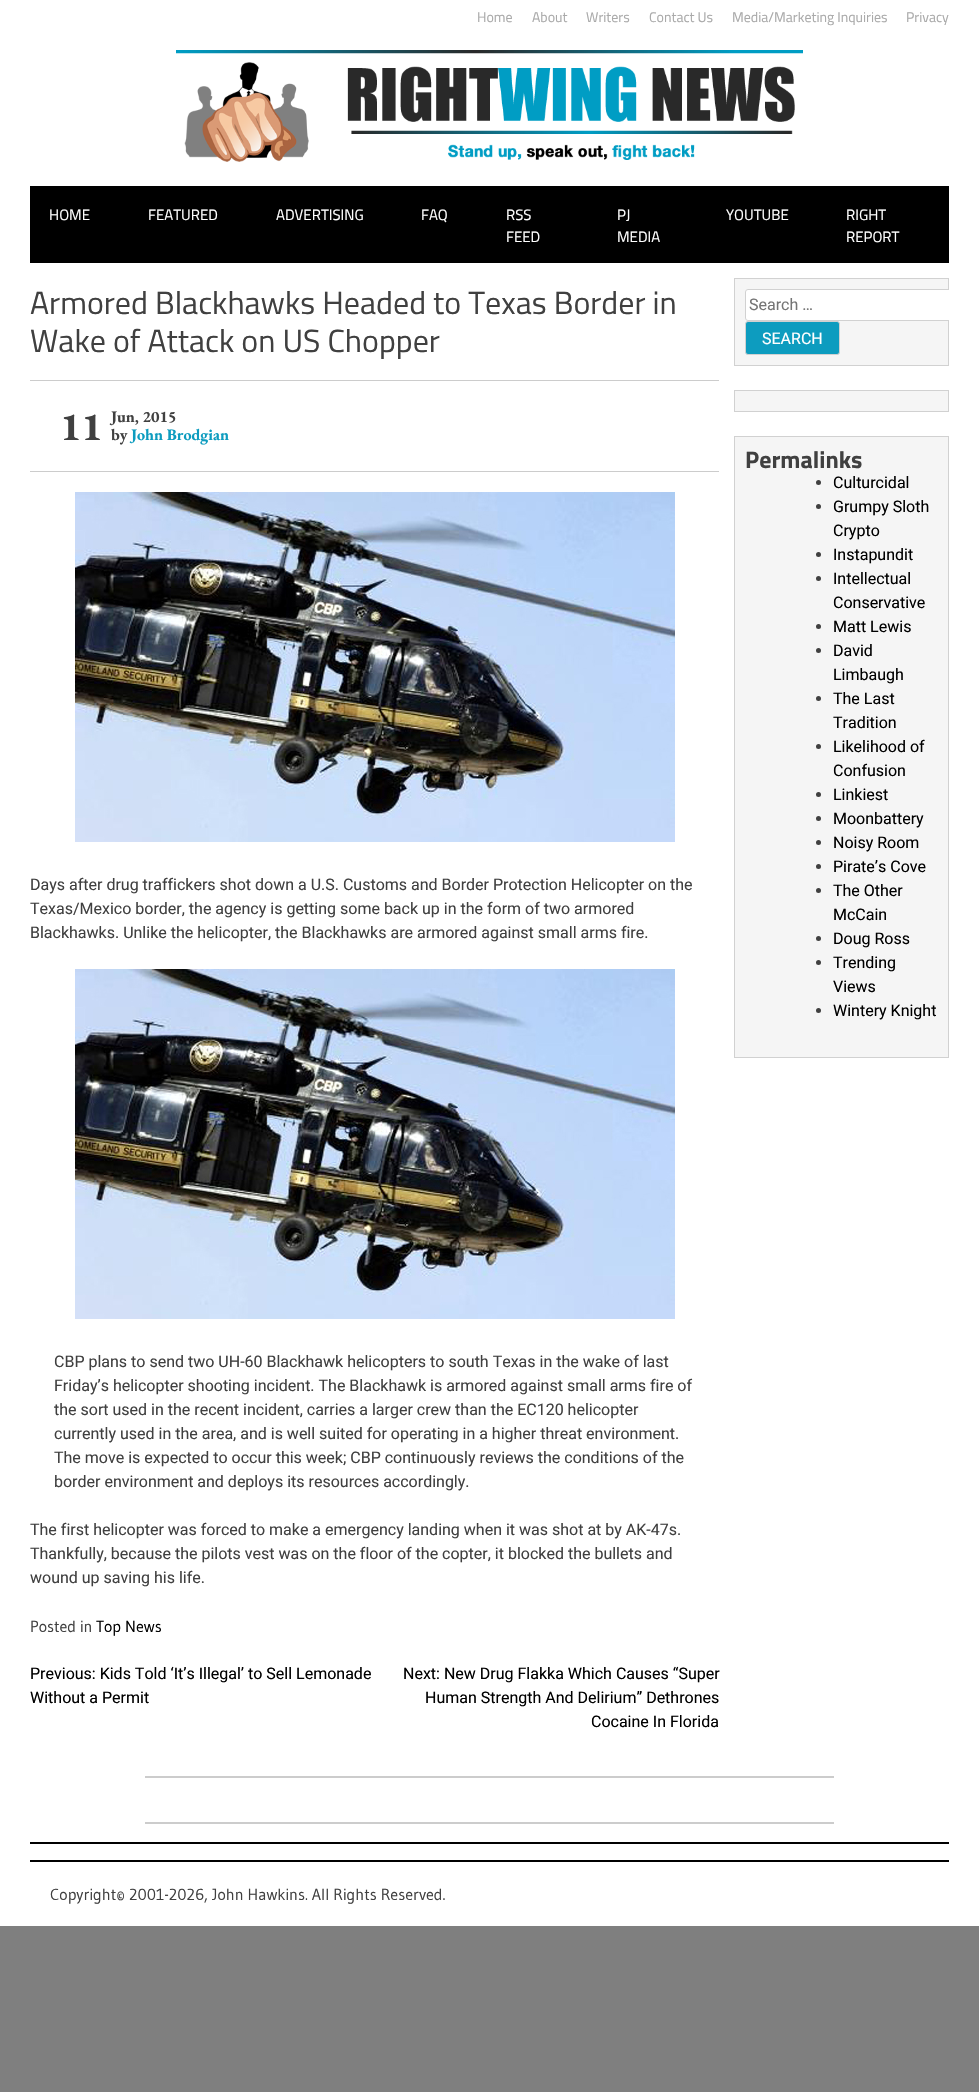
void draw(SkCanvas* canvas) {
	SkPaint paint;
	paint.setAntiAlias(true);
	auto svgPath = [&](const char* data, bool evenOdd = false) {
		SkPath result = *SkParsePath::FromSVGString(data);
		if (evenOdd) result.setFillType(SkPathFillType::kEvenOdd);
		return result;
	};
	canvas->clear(0xff7f7f7f);
	paint.setColor(0xffffffff);
	canvas->drawRect(SkRect::MakeXYWH(0, 0, 979, 1926), paint);
	SkFont f1(fontMgr->matchFamilyStyle("Titillium Web", SkFontStyle::Normal()), 14);
	f1.setSubpixel(true);
	paint.setColor(0xffaaaaaa);
	canvas->drawString("Home", 477, 22, f1, paint);
	canvas->drawString("About", 532, 22, f1, paint);
	canvas->drawString("Writers", 586, 22, f1, paint);
	canvas->drawString("Contact Us", 649, 22, f1, paint);
	canvas->drawString("Media/Marketing Inquiries", 732, 22, f1, paint);
	canvas->drawString("Privacy", 906, 22, f1, paint);
	canvas->drawImageRect(SkImages::DeferredFromEncodedData(SkData::MakeFromFileName("img1.png")), SkRect::MakeXYWH(176, 50, 627, 112), SkSamplingOptions());
	paint.setColor(0xff000000);
	canvas->drawRect(SkRect::MakeXYWH(30, 186, 919, 77), paint);
	SkFont f2(fontMgr->matchFamilyStyle("Titillium Web", SkFontStyle::Normal()), 15);
	f2.setSubpixel(true);
	paint.setColor(0xffffffff);
	canvas->drawString("HOME", 49, 220, f2, paint);
	canvas->drawString("FEATURED", 148, 220, f2, paint);
	canvas->drawString("ADVERTISING", 276, 220, f2, paint);
	canvas->drawString("FAQ", 421, 220, f2, paint);
	canvas->drawString("RSS", 506, 220, f2, paint);
	canvas->drawString("FEED", 506, 242, f2, paint);
	canvas->drawString("PJ", 617, 220, f2, paint);
	canvas->drawString("MEDIA", 617, 242, f2, paint);
	canvas->drawString("YOUTUBE", 726, 220, f2, paint);
	canvas->drawString("RIGHT", 846, 220, f2, paint);
	canvas->drawString("REPORT", 846, 242, f2, paint);
	SkFont f3(fontMgr->matchFamilyStyle("Titillium Web", SkFontStyle::Normal()), 32);
	f3.setSubpixel(true);
	paint.setColor(0xff404040);
	canvas->drawString("Armored Blackhawks Headed to Texas Border in", 30, 314, f3, paint);
	canvas->drawString("Wake of Attack on US Chopper", 30, 352, f3, paint);
	paint.setColor(0xffcccccc);
	canvas->drawRect(SkRect::MakeXYWH(30, 380, 689, 1), paint);
	canvas->drawRect(SkRect::MakeXYWH(30, 471, 689, 1), paint);
	SkFont f4(fontMgr->matchFamilyStyle("EB Garamond", SkFontStyle::Bold()), 40);
	f4.setSubpixel(true);
	paint.setColor(0xff404040);
	canvas->drawString("11", 60, 440, f4, paint);
	SkFont f5(fontMgr->matchFamilyStyle("EB Garamond", SkFontStyle::Bold()), 16);
	f5.setSubpixel(true);
	canvas->drawString("Jun, 2015", 111, 422, f5, paint);
	canvas->drawString("by", 111, 440, f5, paint);
	paint.setColor(0xff0d9cbf);
	canvas->drawString("John Brodgian", 131, 440, f5, paint);
	canvas->drawImageRect(SkImages::DeferredFromEncodedData(SkData::MakeFromFileName("img2.png")), SkRect::MakeXYWH(75, 492, 600, 350), SkSamplingOptions());
	SkFont f6(fontMgr->matchFamilyStyle("Roboto", SkFontStyle::Normal()), 16);
	f6.setSubpixel(true);
	paint.setColor(0xff404040);
	canvas->drawString("Days after drug traffickers shot down a U.S. Customs and Border Protection Helicopter on the", 30, 890, f6, paint);
	canvas->drawString("Texas/Mexico border, the agency is getting some back up in the form of two armored", 30, 914, f6, paint);
	canvas->drawString("Blackhawks. Unlike the helicopter, the Blackhawks are armored against small arms fire.", 30, 938, f6, paint);
	canvas->drawImageRect(SkImages::DeferredFromEncodedData(SkData::MakeFromFileName("img2.png")), SkRect::MakeXYWH(75, 969, 600, 350), SkSamplingOptions());
	canvas->drawString("CBP plans to send two UH-60 Blackhawk helicopters to south Texas in the wake of last", 54, 1367, f6, paint);
	canvas->drawString("Friday’s helicopter shooting incident. The Blackhawk is armored against small arms fire of", 54, 1391, f6, paint);
	canvas->drawString("the sort used in the recent incident, carries a larger crew than the EC120 helicopter", 54, 1415, f6, paint);
	canvas->drawString("currently used in the area, and is well suited for operating in a higher threat environment.", 54, 1439, f6, paint);
	canvas->drawString("The move is expected to occur this week; CBP continuously reviews the conditions of the", 54, 1463, f6, paint);
	canvas->drawString("border environment and deploys its resources accordingly.", 54, 1487, f6, paint);
	canvas->drawString("The first helicopter was forced to make a emergency landing when it was shot at by AK-47s.", 30, 1535, f6, paint);
	canvas->drawString("Thankfully, because the pilots vest was on the floor of the copter, it blocked the bullets and", 30, 1559, f6, paint);
	canvas->drawString("wound up saving his life.", 30, 1583, f6, paint);
	SkFont f7(fontMgr->matchFamilyStyle("Gudea", SkFontStyle::Normal()), 16);
	f7.setSubpixel(true);
	canvas->drawString("Posted in", 30, 1632, f7, paint);
	paint.setColor(0xff000000);
	canvas->drawString("Top News", 96, 1632, f7, paint);
	canvas->drawString("Previous: Kids Told ‘It’s Illegal’ to Sell Lemonade", 30, 1679, f6, paint);
	canvas->drawString("Without a Permit", 30, 1703, f6, paint);
	canvas->drawString("Next: New Drug Flakka Which Causes “Super", 403, 1679, f6, paint);
	canvas->drawString("Human Strength And Delirium” Dethrones", 425, 1703, f6, paint);
	canvas->drawString("Cocaine In Florida", 591, 1727, f6, paint);
	paint.setColor(0xfff5f5f5);
	canvas->drawRect(SkRect::MakeXYWH(734.5, 278.5, 214, 87), paint);
	paint.setStroke(true);
	paint.setStrokeWidth(1);
	paint.setColor(0xffd1d1d1);
	canvas->drawRect(SkRect::MakeXYWH(734.5, 278.5, 214, 87), paint);
	paint.setStroke(false);
	paint.setColor(0xffffffff);
	canvas->drawPath(svgPath("M748 289H949V321H748C746.5 321 745 319.5 745 318V292C745 290.5 746.5 289 748 289Z"), paint);
	canvas->save();
	canvas->clipRect(SkRect::MakeXYWH(719, 263, 230, 819));
	paint.setStroke(true);
	paint.setColor(0xffd1d1d1);
	canvas->drawRoundRect(SkRect::MakeXYWH(745.5, 289.5, 210, 31), 2.5, 2.5, paint);
	canvas->restore();
	paint.setStroke(false);
	paint.setColor(0xff757575);
	canvas->drawString("Search …", 749, 310, f6, paint);
	paint.setColor(0xff0d9cbf);
	canvas->drawRoundRect(SkRect::MakeXYWH(745.5, 321.5, 94, 33), 2.5, 2.5, paint);
	paint.setStroke(true);
	paint.setColor(0xffd1d1d1);
	canvas->drawRoundRect(SkRect::MakeXYWH(745.5, 321.5, 94, 33), 2.5, 2.5, paint);
	paint.setStroke(false);
	paint.setColor(0xffffffff);
	canvas->drawString("SEARCH", 762, 344, f6, paint);
	paint.setColor(0xfff5f5f5);
	canvas->drawRect(SkRect::MakeXYWH(734.5, 390.5, 214, 21), paint);
	paint.setStroke(true);
	paint.setColor(0xffd1d1d1);
	canvas->drawRect(SkRect::MakeXYWH(734.5, 390.5, 214, 21), paint);
	paint.setStroke(false);
	paint.setColor(0xfff5f5f5);
	canvas->drawRect(SkRect::MakeXYWH(734.5, 436.5, 214, 621), paint);
	paint.setStroke(true);
	paint.setColor(0xffd1d1d1);
	canvas->drawRect(SkRect::MakeXYWH(734.5, 436.5, 214, 621), paint);
	SkFont f8(fontMgr->matchFamilyStyle("Titillium Web", SkFontStyle::Bold()), 24);
	f8.setSubpixel(true);
	paint.setStroke(false);
	paint.setColor(0xff404040);
	canvas->drawString("Permalinks", 745, 468, f8, paint);
	canvas->drawCircle(818.5, 482.5, 2.5, paint);
	paint.setColor(0xff000000);
	canvas->drawString("Culturcidal", 833, 488, f6, paint);
	paint.setColor(0xff404040);
	canvas->drawCircle(818.5, 506.5, 2.5, paint);
	paint.setColor(0xff000000);
	canvas->drawString("Grumpy Sloth", 833, 512, f6, paint);
	canvas->drawString("Crypto", 833, 536, f6, paint);
	paint.setColor(0xff404040);
	canvas->drawCircle(818.5, 554.5, 2.5, paint);
	paint.setColor(0xff000000);
	canvas->drawString("Instapundit", 833, 560, f6, paint);
	paint.setColor(0xff404040);
	canvas->drawCircle(818.5, 578.5, 2.5, paint);
	paint.setColor(0xff000000);
	canvas->drawString("Intellectual", 833, 584, f6, paint);
	canvas->drawString("Conservative", 833, 608, f6, paint);
	paint.setColor(0xff404040);
	canvas->drawCircle(818.5, 626.5, 2.5, paint);
	paint.setColor(0xff000000);
	canvas->drawString("Matt Lewis", 833, 632, f6, paint);
	paint.setColor(0xff404040);
	canvas->drawCircle(818.5, 650.5, 2.5, paint);
	paint.setColor(0xff000000);
	canvas->drawString("David", 833, 656, f6, paint);
	canvas->drawString("Limbaugh", 833, 680, f6, paint);
	paint.setColor(0xff404040);
	canvas->drawCircle(818.5, 698.5, 2.5, paint);
	paint.setColor(0xff000000);
	canvas->drawString("The Last", 833, 704, f6, paint);
	canvas->drawString("Tradition", 833, 728, f6, paint);
	paint.setColor(0xff404040);
	canvas->drawCircle(818.5, 746.5, 2.5, paint);
	paint.setColor(0xff000000);
	canvas->drawString("Likelihood of", 833, 752, f6, paint);
	canvas->drawString("Confusion", 833, 776, f6, paint);
	paint.setColor(0xff404040);
	canvas->drawCircle(818.5, 794.5, 2.5, paint);
	paint.setColor(0xff000000);
	canvas->drawString("Linkiest", 833, 800, f6, paint);
	paint.setColor(0xff404040);
	canvas->drawCircle(818.5, 818.5, 2.5, paint);
	paint.setColor(0xff000000);
	canvas->drawString("Moonbattery", 833, 824, f6, paint);
	paint.setColor(0xff404040);
	canvas->drawCircle(818.5, 842.5, 2.5, paint);
	paint.setColor(0xff000000);
	canvas->drawString("Noisy Room", 833, 848, f6, paint);
	paint.setColor(0xff404040);
	canvas->drawCircle(818.5, 866.5, 2.5, paint);
	paint.setColor(0xff000000);
	canvas->drawString("Pirate’s Cove", 833, 872, f6, paint);
	paint.setColor(0xff404040);
	canvas->drawCircle(818.5, 890.5, 2.5, paint);
	paint.setColor(0xff000000);
	canvas->drawString("The Other", 833, 896, f6, paint);
	canvas->drawString("McCain", 833, 920, f6, paint);
	paint.setColor(0xff404040);
	canvas->drawCircle(818.5, 938.5, 2.5, paint);
	paint.setColor(0xff000000);
	canvas->drawString("Doug Ross", 833, 944, f6, paint);
	paint.setColor(0xff404040);
	canvas->drawCircle(818.5, 962.5, 2.5, paint);
	paint.setColor(0xff000000);
	canvas->drawString("Trending", 833, 968, f6, paint);
	canvas->drawString("Views", 833, 992, f6, paint);
	paint.setColor(0xff404040);
	canvas->drawCircle(818.5, 1010.5, 2.5, paint);
	paint.setColor(0xff000000);
	canvas->drawString("Wintery Knight", 833, 1016, f6, paint);
	paint.setColor(0xffcccccc);
	canvas->drawRect(SkRect::MakeXYWH(145, 1776, 689, 2), paint);
	canvas->drawRect(SkRect::MakeXYWH(145, 1822, 689, 2), paint);
	paint.setColor(0xff000000);
	canvas->drawRect(SkRect::MakeXYWH(30, 1842, 919, 2), paint);
	canvas->drawRect(SkRect::MakeXYWH(30, 1860, 919, 2), paint);
	paint.setColor(0xff404040);
	canvas->drawString("Copyright© 2001-2026, John Hawkins. All Rights Reserved.", 50, 1900, f7, paint);
}
